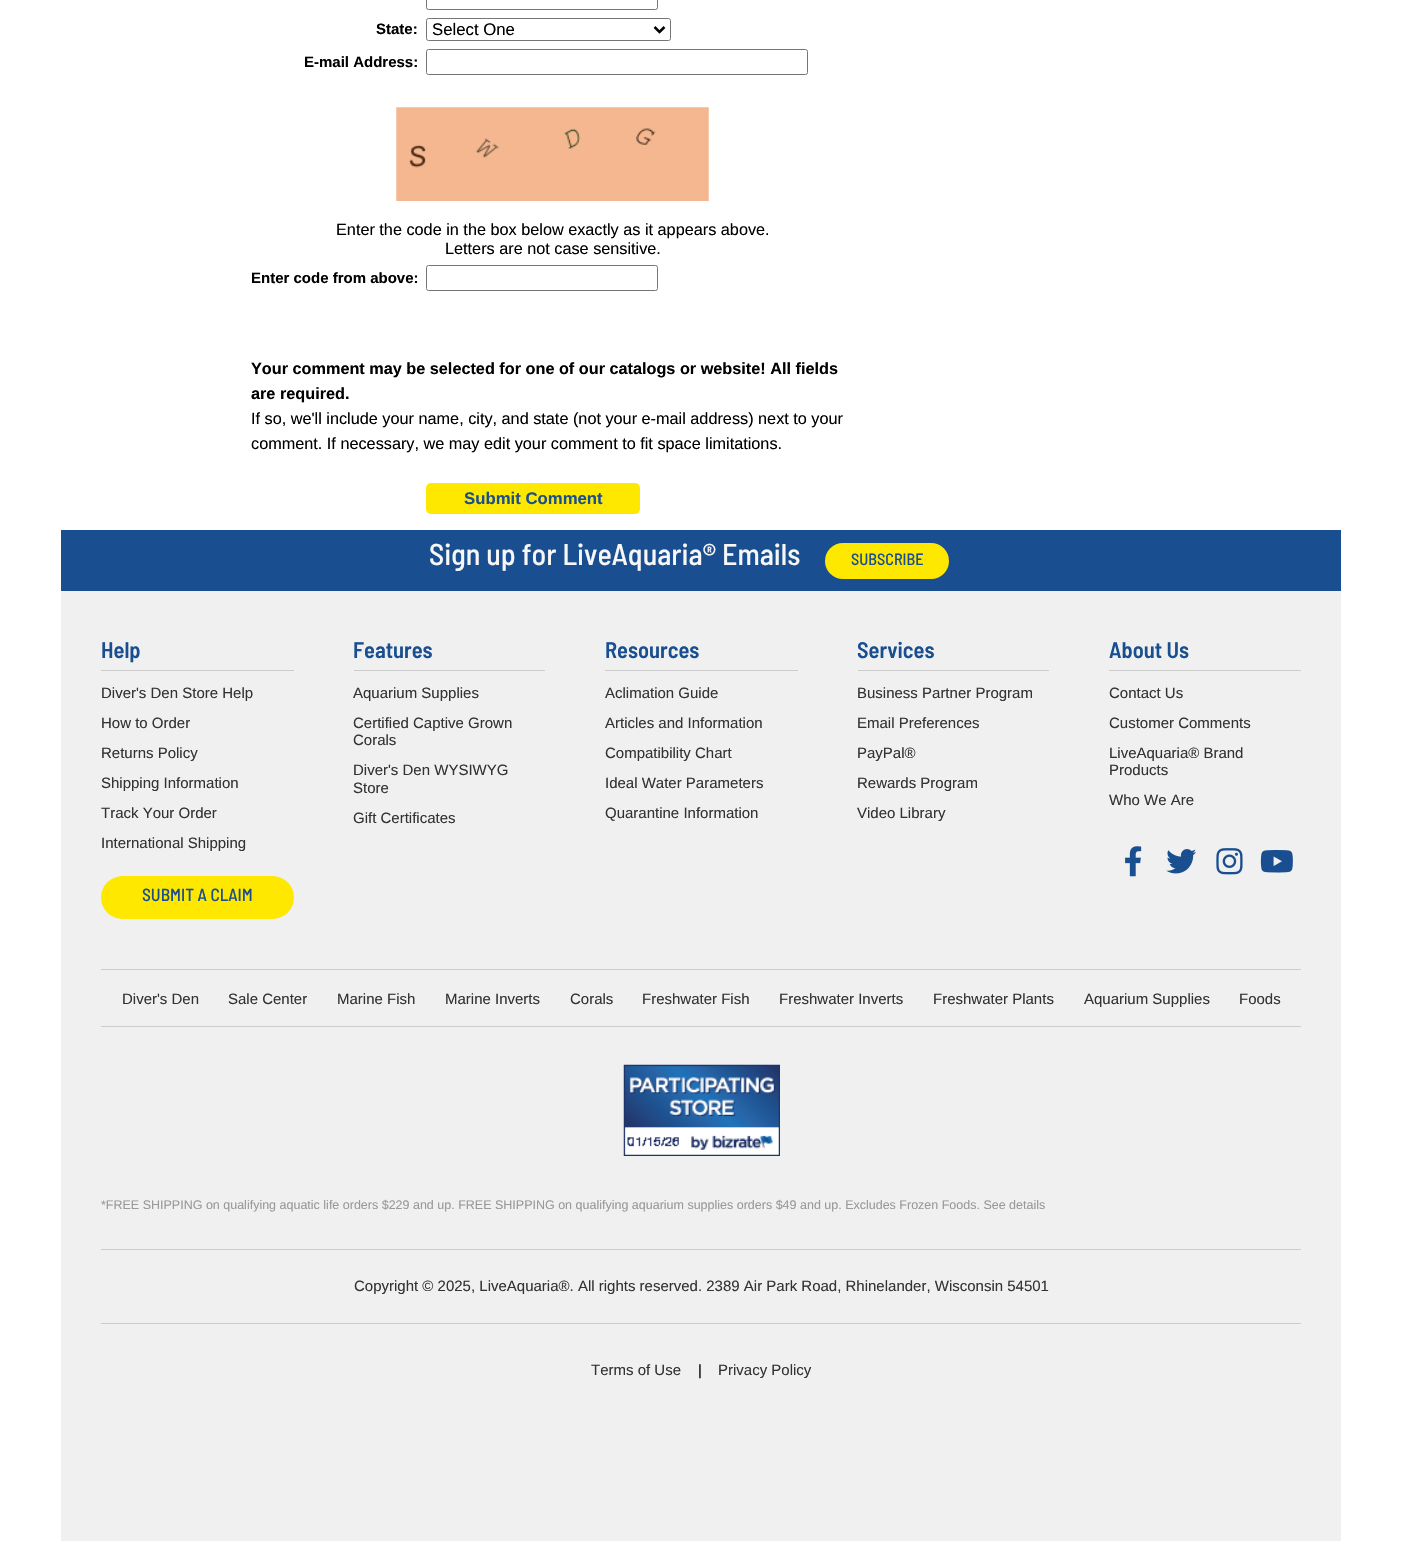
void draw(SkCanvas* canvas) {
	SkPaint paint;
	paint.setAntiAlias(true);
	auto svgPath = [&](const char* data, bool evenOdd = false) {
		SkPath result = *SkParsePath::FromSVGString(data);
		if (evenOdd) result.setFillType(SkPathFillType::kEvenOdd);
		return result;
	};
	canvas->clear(0xffffffff);
	paint.setStroke(true);
	paint.setStrokeWidth(1);
	paint.setColor(0xff767676);
	canvas->drawRoundRect(SkRect::MakeXYWH(426.5, -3.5, 231, 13), 2, 2, paint);
	SkFont f1(fontMgr->matchFamilyStyle("Liberation Sans", SkFontStyle::Bold()), 15);
	f1.setSubpixel(true);
	paint.setStroke(false);
	paint.setColor(0xff000000);
	canvas->drawString("State:", 376, 34, f1, paint);
	paint.setStroke(true);
	paint.setColor(0xff767676);
	canvas->drawRoundRect(SkRect::MakeXYWH(426.5, 18.5, 244, 22), 2, 2, paint);
	paint.setStrokeWidth(2.5);
	paint.setColor(0xff000000);
	canvas->drawPath(svgPath("M654.5 27L659.5 32L664.5 27"), paint);
	SkFont f2(fontMgr->matchFamilyStyle("Liberation Sans", SkFontStyle::Normal()), 16.75);
	f2.setSubpixel(true);
	paint.setStroke(false);
	canvas->drawString("Select One", 432, 35, f2, paint);
	canvas->drawString("E-mail Address:", 304, 67, f1, paint);
	paint.setStroke(true);
	paint.setStrokeWidth(1);
	paint.setColor(0xff767676);
	canvas->drawRoundRect(SkRect::MakeXYWH(426.5, 49.5, 381, 25), 2, 2, paint);
	canvas->drawImageRect(SkImages::DeferredFromEncodedData(SkData::MakeFromFileName("img1.png")), SkRect::MakeXYWH(396, 107, 313, 94), SkSamplingOptions());
	SkFont f3(fontMgr->matchFamilyStyle("Liberation Sans", SkFontStyle::Normal()), 16.25);
	f3.setSubpixel(true);
	paint.setStroke(false);
	paint.setColor(0xff000000);
	canvas->drawString("Enter the code in the box below exactly as it appears above.", 336, 235, f3, paint);
	canvas->drawString("Letters are not case sensitive.", 445, 254, f3, paint);
	canvas->drawString("Enter code from above:", 251, 283, f1, paint);
	paint.setStroke(true);
	paint.setColor(0xff767676);
	canvas->drawRoundRect(SkRect::MakeXYWH(426.5, 265.5, 231, 25), 2, 2, paint);
	SkFont f4(fontMgr->matchFamilyStyle("Liberation Sans", SkFontStyle::Bold()), 16.25);
	f4.setSubpixel(true);
	paint.setStroke(false);
	paint.setColor(0xff000000);
	canvas->drawString("Your comment may be selected for one of our catalogs or website! All fields", 251, 374, f4, paint);
	canvas->drawString("are required.", 251, 399, f4, paint);
	canvas->drawString("If so, we'll include your name, city, and state (not your e-mail address) next to your", 251, 424, f3, paint);
	canvas->drawString("comment. If necessary, we may edit your comment to fit space limitations.", 251, 449, f3, paint);
	paint.setColor(0xffffe800);
	canvas->drawRoundRect(SkRect::MakeXYWH(426, 483, 214, 31), 5, 5, paint);
	SkFont f5(fontMgr->matchFamilyStyle("Liberation Sans", SkFontStyle::Bold()), 16.75);
	f5.setSubpixel(true);
	paint.setColor(0xff194f90);
	canvas->drawString("Submit Comment", 464, 504, f5, paint);
	paint.setColor(0xfff0f0f0);
	canvas->drawRect(SkRect::MakeXYWH(61, 591, 1280, 950), paint);
	paint.setColor(0xff194f90);
	canvas->drawRect(SkRect::MakeXYWH(61, 530, 1280, 61), paint);
	SkFont f6(fontMgr->matchFamilyStyle("Barlow Semi Condensed", SkFontStyle(500, SkFontStyle::kNormal_Width, SkFontStyle::kUpright_Slant)), 30);
	f6.setSubpixel(true);
	paint.setColor(0xfff7f7f7);
	canvas->drawString("Sign up for LiveAquaria® Emails", 429, 565, f6, paint);
	paint.setColor(0xffffe800);
	canvas->drawRoundRect(SkRect::MakeXYWH(825, 543, 124, 36), 18, 18, paint);
	SkFont f7(fontMgr->matchFamilyStyle("Barlow Semi Condensed", SkFontStyle(500, SkFontStyle::kNormal_Width, SkFontStyle::kUpright_Slant)), 16.25);
	f7.setSubpixel(true);
	paint.setColor(0xff194f90);
	canvas->drawString("SUBSCRIBE", 851, 565, f7, paint);
	paint.setColor(0xffcccccc);
	canvas->drawRect(SkRect::MakeXYWH(101, 670, 193, 1), paint);
	SkFont f8(fontMgr->matchFamilyStyle("Barlow Semi Condensed", SkFontStyle(600, SkFontStyle::kNormal_Width, SkFontStyle::kUpright_Slant)), 22.5);
	f8.setSubpixel(true);
	paint.setColor(0xff194f90);
	canvas->drawString("Help", 101, 658, f8, paint);
	SkFont f9(fontMgr->matchFamilyStyle("Liberation Sans", SkFontStyle::Normal()), 15);
	f9.setSubpixel(true);
	paint.setColor(0xff333333);
	canvas->drawString("Diver's Den Store Help", 101, 698, f9, paint);
	canvas->drawString("How to Order", 101, 728, f9, paint);
	canvas->drawString("Returns Policy", 101, 758, f9, paint);
	canvas->drawString("Shipping Information", 101, 788, f9, paint);
	canvas->drawString("Track Your Order", 101, 818, f9, paint);
	canvas->drawString("International Shipping", 101, 848, f9, paint);
	paint.setColor(0xffffe800);
	canvas->drawRoundRect(SkRect::MakeXYWH(101, 876, 193, 43), 21.5, 21.5, paint);
	SkFont f10(fontMgr->matchFamilyStyle("Barlow Semi Condensed", SkFontStyle(500, SkFontStyle::kNormal_Width, SkFontStyle::kUpright_Slant)), 17.5);
	f10.setSubpixel(true);
	paint.setColor(0xff194f90);
	canvas->drawString("SUBMIT A CLAIM", 142, 901, f10, paint);
	paint.setColor(0xffcccccc);
	canvas->drawRect(SkRect::MakeXYWH(354, 670, 191, 1), paint);
	paint.setColor(0xff194f90);
	canvas->drawString("Features", 353, 658, f8, paint);
	paint.setColor(0xff333333);
	canvas->drawString("Aquarium Supplies", 353, 698, f9, paint);
	canvas->drawString("Certified Captive Grown", 353, 728, f9, paint);
	canvas->drawString("Corals", 353, 745, f9, paint);
	canvas->drawString("Diver's Den WYSIWYG", 353, 775, f9, paint);
	canvas->drawString("Store", 353, 793, f9, paint);
	canvas->drawString("Gift Certificates", 353, 823, f9, paint);
	paint.setColor(0xffcccccc);
	canvas->drawRect(SkRect::MakeXYWH(605, 670, 193, 1), paint);
	paint.setColor(0xff194f90);
	canvas->drawString("Resources", 605, 658, f8, paint);
	paint.setColor(0xff333333);
	canvas->drawString("Aclimation Guide", 605, 698, f9, paint);
	canvas->drawString("Articles and Information", 605, 728, f9, paint);
	canvas->drawString("Compatibility Chart", 605, 758, f9, paint);
	canvas->drawString("Ideal Water Parameters", 605, 788, f9, paint);
	canvas->drawString("Quarantine Information", 605, 818, f9, paint);
	paint.setColor(0xffcccccc);
	canvas->drawRect(SkRect::MakeXYWH(858, 670, 191, 1), paint);
	paint.setColor(0xff194f90);
	canvas->drawString("Services", 857, 658, f8, paint);
	paint.setColor(0xff333333);
	canvas->drawString("Business Partner Program", 857, 698, f9, paint);
	canvas->drawString("Email Preferences", 857, 728, f9, paint);
	canvas->drawString("PayPal®", 857, 758, f9, paint);
	canvas->drawString("Rewards Program", 857, 788, f9, paint);
	canvas->drawString("Video Library", 857, 818, f9, paint);
	paint.setColor(0xffcccccc);
	canvas->drawRect(SkRect::MakeXYWH(1109, 670, 192, 1), paint);
	paint.setColor(0xff194f90);
	canvas->drawString("About Us", 1109, 658, f8, paint);
	paint.setColor(0xff333333);
	canvas->drawString("Contact Us", 1109, 698, f9, paint);
	canvas->drawString("Customer Comments", 1109, 728, f9, paint);
	canvas->drawString("LiveAquaria® Brand", 1109, 758, f9, paint);
	canvas->drawString("Products", 1109, 775, f9, paint);
	canvas->drawString("Who We Are", 1109, 805, f9, paint);
	canvas->drawImageRect(SkImages::DeferredFromEncodedData(SkData::MakeFromFileName("img2.png")), SkRect::MakeXYWH(1125, 846, 17, 31), SkSamplingOptions());
	canvas->drawImageRect(SkImages::DeferredFromEncodedData(SkData::MakeFromFileName("img3.png")), SkRect::MakeXYWH(1166, 849, 31, 25), SkSamplingOptions());
	canvas->drawImageRect(SkImages::DeferredFromEncodedData(SkData::MakeFromFileName("img4.png")), SkRect::MakeXYWH(1216, 848, 27, 27), SkSamplingOptions());
	canvas->drawImageRect(SkImages::DeferredFromEncodedData(SkData::MakeFromFileName("img5.png")), SkRect::MakeXYWH(1260, 850, 33, 23), SkSamplingOptions());
	paint.setColor(0xffcccccc);
	canvas->drawRect(SkRect::MakeXYWH(101, 969, 1200, 1), paint);
	canvas->drawRect(SkRect::MakeXYWH(101, 1026, 1200, 1), paint);
	paint.setColor(0xff333333);
	canvas->drawString("Diver's Den", 122, 1004, f9, paint);
	canvas->drawString("Sale Center", 228, 1004, f9, paint);
	canvas->drawString("Marine Fish", 337, 1004, f9, paint);
	canvas->drawString("Marine Inverts", 445, 1004, f9, paint);
	canvas->drawString("Corals", 570, 1004, f9, paint);
	canvas->drawString("Freshwater Fish", 642, 1004, f9, paint);
	canvas->drawString("Freshwater Inverts", 779, 1004, f9, paint);
	canvas->drawString("Freshwater Plants", 933, 1004, f9, paint);
	canvas->drawString("Aquarium Supplies", 1084, 1004, f9, paint);
	canvas->drawString("Foods", 1239, 1004, f9, paint);
	canvas->drawImageRect(SkImages::DeferredFromEncodedData(SkData::MakeFromFileName("img6.png")), SkRect::MakeXYWH(623, 1064, 157, 92), SkSamplingOptions());
	SkFont f11(fontMgr->matchFamilyStyle("Liberation Sans", SkFontStyle::Normal()), 12.5);
	f11.setSubpixel(true);
	paint.setColor(0xff999999);
	canvas->drawString("*FREE SHIPPING on qualifying aquatic life orders $229 and up. FREE SHIPPING on qualifying aquarium supplies orders $49 and up. Excludes Frozen Foods. See details", 101, 1209, f11, paint);
	paint.setColor(0xffcccccc);
	canvas->drawRect(SkRect::MakeXYWH(101, 1249, 1200, 1), paint);
	canvas->drawRect(SkRect::MakeXYWH(101, 1323, 1200, 1), paint);
	paint.setColor(0xff333333);
	canvas->drawString("Copyright © 2025, LiveAquaria®. All rights reserved. 2389 Air Park Road, Rhinelander, Wisconsin 54501", 354, 1291, f9, paint);
	canvas->drawString("Terms of Use", 591, 1375, f9, paint);
	paint.setColor(0xff000000);
	canvas->drawString("|", 698, 1375, f9, paint);
	paint.setColor(0xff333333);
	canvas->drawString("Privacy Policy", 718, 1375, f9, paint);
}
